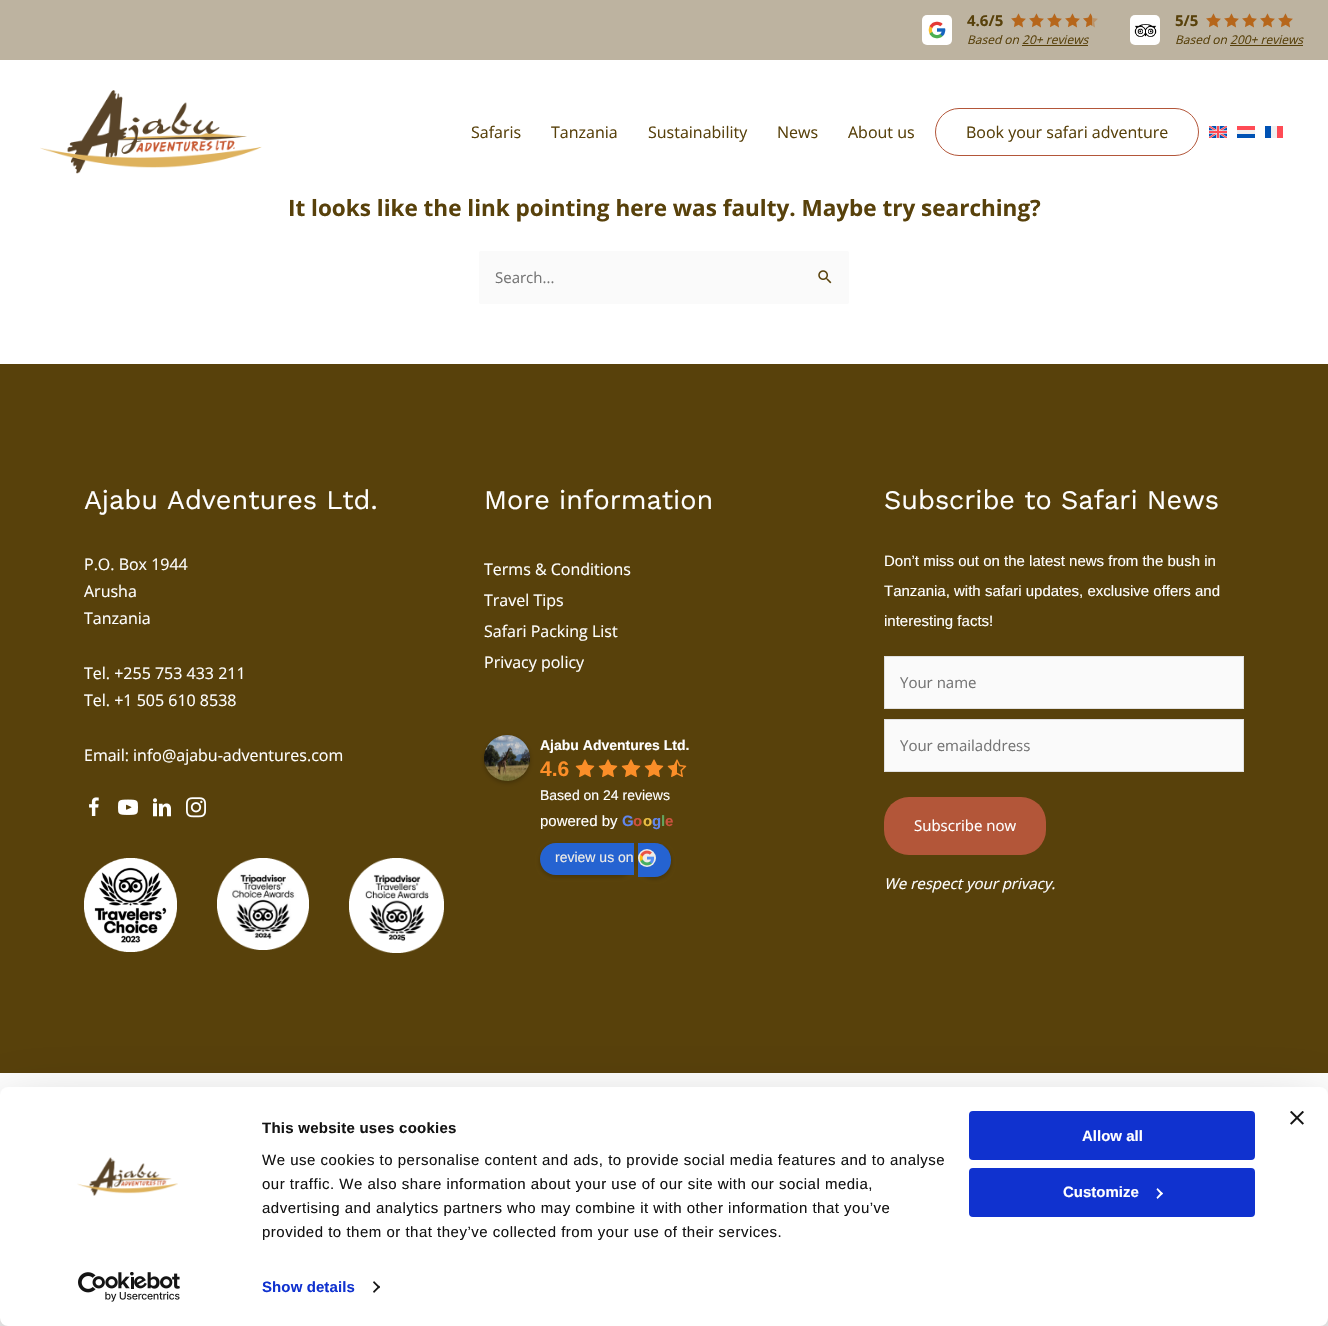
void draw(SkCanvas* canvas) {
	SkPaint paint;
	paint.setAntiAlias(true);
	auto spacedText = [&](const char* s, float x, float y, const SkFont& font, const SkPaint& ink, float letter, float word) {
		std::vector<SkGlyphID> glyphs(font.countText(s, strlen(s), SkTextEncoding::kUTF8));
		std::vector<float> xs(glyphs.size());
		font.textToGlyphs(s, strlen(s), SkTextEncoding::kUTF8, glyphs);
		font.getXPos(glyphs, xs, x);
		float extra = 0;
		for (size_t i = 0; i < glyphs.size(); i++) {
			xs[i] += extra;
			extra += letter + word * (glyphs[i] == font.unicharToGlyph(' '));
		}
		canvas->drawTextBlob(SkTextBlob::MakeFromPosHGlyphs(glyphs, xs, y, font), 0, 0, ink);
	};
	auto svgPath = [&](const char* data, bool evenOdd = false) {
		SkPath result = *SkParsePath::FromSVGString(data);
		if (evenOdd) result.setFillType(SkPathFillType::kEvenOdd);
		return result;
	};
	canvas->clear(0xffffffff);
	paint.setColor(0xffbdb3a0);
	canvas->drawRect(SkRect::MakeXYWH(0, 0, 1328, 60), paint);
	paint.setColor(0xffffffff);
	canvas->drawRoundRect(SkRect::MakeXYWH(922, 15, 30, 30), 5, 5, paint);
	canvas->drawImageRect(SkImages::DeferredFromEncodedData(SkData::MakeFromFileName("img1.png")), SkRect::MakeXYWH(928, 21, 18, 18), SkSamplingOptions());
	SkFont f1(fontMgr->matchFamilyStyle("Open Sans", SkFontStyle::Bold()), 15);
	f1.setSubpixel(true);
	paint.setColor(0xff58410b);
	canvas->drawString("4.6/5", 967, 26, f1, paint);
	canvas->drawImageRect(SkImages::DeferredFromEncodedData(SkData::MakeFromFileName("img2.png")), SkRect::MakeXYWH(1011, 13, 15, 15), SkSamplingOptions());
	canvas->drawImageRect(SkImages::DeferredFromEncodedData(SkData::MakeFromFileName("img2.png")), SkRect::MakeXYWH(1029, 13, 15, 15), SkSamplingOptions());
	canvas->drawImageRect(SkImages::DeferredFromEncodedData(SkData::MakeFromFileName("img2.png")), SkRect::MakeXYWH(1047, 13, 15, 15), SkSamplingOptions());
	canvas->drawImageRect(SkImages::DeferredFromEncodedData(SkData::MakeFromFileName("img2.png")), SkRect::MakeXYWH(1065, 13, 15, 15), SkSamplingOptions());
	canvas->drawImageRect(SkImages::DeferredFromEncodedData(SkData::MakeFromFileName("img3.png")), SkRect::MakeXYWH(1083, 13, 15, 15), SkSamplingOptions());
	canvas->drawImageRect(SkImages::DeferredFromEncodedData(SkData::MakeFromFileName("img4.png")), SkRect::MakeXYWH(1083, 13, 9, 14), SkSamplingOptions());
	SkFont f2(fontMgr->matchFamilyStyle("Open Sans", SkFontStyle::Italic()), 12);
	f2.setSubpixel(true);
	canvas->drawString("Based on 20+ reviews", 967, 44, f2, paint);
	canvas->drawRect(SkRect::MakeXYWH(1022, 45, 66, 1), paint);
	paint.setColor(0xffffffff);
	canvas->drawRoundRect(SkRect::MakeXYWH(1130, 15, 30, 30), 5, 5, paint);
	canvas->drawImageRect(SkImages::DeferredFromEncodedData(SkData::MakeFromFileName("img5.png")), SkRect::MakeXYWH(1134, 24, 23, 13), SkSamplingOptions());
	paint.setColor(0xff58410b);
	canvas->drawString("5/5", 1175, 26, f1, paint);
	canvas->drawImageRect(SkImages::DeferredFromEncodedData(SkData::MakeFromFileName("img2.png")), SkRect::MakeXYWH(1206, 13, 15, 15), SkSamplingOptions());
	canvas->drawImageRect(SkImages::DeferredFromEncodedData(SkData::MakeFromFileName("img2.png")), SkRect::MakeXYWH(1224, 13, 15, 15), SkSamplingOptions());
	canvas->drawImageRect(SkImages::DeferredFromEncodedData(SkData::MakeFromFileName("img2.png")), SkRect::MakeXYWH(1242, 13, 15, 15), SkSamplingOptions());
	canvas->drawImageRect(SkImages::DeferredFromEncodedData(SkData::MakeFromFileName("img2.png")), SkRect::MakeXYWH(1260, 13, 15, 15), SkSamplingOptions());
	canvas->drawImageRect(SkImages::DeferredFromEncodedData(SkData::MakeFromFileName("img2.png")), SkRect::MakeXYWH(1278, 13, 15, 15), SkSamplingOptions());
	canvas->drawString("Based on 200+ reviews", 1175, 44, f2, paint);
	canvas->drawRect(SkRect::MakeXYWH(1230, 45, 73, 1), paint);
	SkFont f3(fontMgr->matchFamilyStyle("Open Sans", SkFontStyle::Bold()), 22.5);
	f3.setSubpixel(true);
	canvas->drawString("It looks like the link pointing here was faulty. Maybe try searching?", 288, 216, f3, paint);
	paint.setColor(0xb3ffffff);
	canvas->drawRect(SkRect::MakeXYWH(312, 198, 688, 1), paint);
	canvas->drawImageRect(SkImages::DeferredFromEncodedData(SkData::MakeFromFileName("img6.png")), SkRect::MakeXYWH(40, 90, 222, 84), SkSamplingOptions());
	SkFont f4(fontMgr->matchFamilyStyle("Open Sans", SkFontStyle::Normal()), 16);
	f4.setSubpixel(true);
	paint.setColor(0xff58410b);
	canvas->drawString("Safaris", 471, 138, f4, paint);
	canvas->drawString("Tanzania", 551, 138, f4, paint);
	canvas->drawString("Sustainability", 648, 138, f4, paint);
	canvas->drawString("News", 777, 138, f4, paint);
	canvas->drawString("About us", 848, 138, f4, paint);
	paint.setStroke(true);
	paint.setStrokeWidth(1);
	paint.setColor(0xffb35639);
	canvas->drawRoundRect(SkRect::MakeXYWH(935.5, 108.5, 263, 47), 23.5, 23.5, paint);
	paint.setStroke(false);
	paint.setColor(0xff58410b);
	canvas->drawString("Book your safari adventure", 966, 138, f4, paint);
	canvas->drawImageRect(SkImages::DeferredFromEncodedData(SkData::MakeFromFileName("img7.png")), SkRect::MakeXYWH(1209, 126, 18, 12), SkSamplingOptions());
	paint.setColor(0xffff4b55);
	canvas->drawRect(SkRect::MakeXYWH(1237, 126, 18, 4), paint);
	paint.setColor(0xfff0f0f0);
	canvas->drawRect(SkRect::MakeXYWH(1237, 130, 18, 4), paint);
	paint.setColor(0xff0052b4);
	canvas->drawRect(SkRect::MakeXYWH(1237, 134, 18, 4), paint);
	canvas->drawRect(SkRect::MakeXYWH(1265, 126, 6, 12), paint);
	paint.setColor(0xfff0f0f0);
	canvas->drawRect(SkRect::MakeXYWH(1271, 126, 6, 12), paint);
	paint.setColor(0xffff4b55);
	canvas->drawRect(SkRect::MakeXYWH(1277, 126, 6, 12), paint);
	paint.setColor(0xfffafafa);
	canvas->drawRoundRect(SkRect::MakeXYWH(479, 251, 370, 53), 2, 2, paint);
	SkFont f5(fontMgr->matchFamilyStyle("Open Sans", SkFontStyle::Normal()), 15);
	f5.setSubpixel(true);
	paint.setColor(0xff757575);
	canvas->drawString("Search...", 495, 283, f5, paint);
	canvas->drawImageRect(SkImages::DeferredFromEncodedData(SkData::MakeFromFileName("img8.png")), SkRect::MakeXYWH(818, 270, 14, 14), SkSamplingOptions());
	paint.setColor(0xff58410b);
	canvas->drawRect(SkRect::MakeXYWH(0, 364, 1328, 709), paint);
	SkFont f6(fontMgr->matchFamilyStyle("Work Sans", SkFontStyle::Normal()), 27);
	f6.setSubpixel(true);
	paint.setColor(0xffffffff);
	canvas->drawString("Ajabu Adventures Ltd.", 84, 509, f6, paint);
	canvas->drawString("P.O. Box 1944", 84, 570, f4, paint);
	canvas->drawString("Arusha", 84, 597, f4, paint);
	canvas->drawString("Tanzania", 84, 624, f4, paint);
	canvas->drawString("Tel. +255 753 433 211", 84, 679, f4, paint);
	canvas->drawString("Tel. +1 505 610 8538", 84, 706, f4, paint);
	canvas->drawString("Email: info@ajabu-adventures.com", 84, 761, f4, paint);
	canvas->drawImageRect(SkImages::DeferredFromEncodedData(SkData::MakeFromFileName("img9.png")), SkRect::MakeXYWH(89, 797, 10, 19), SkSamplingOptions());
	canvas->drawImageRect(SkImages::DeferredFromEncodedData(SkData::MakeFromFileName("img10.png")), SkRect::MakeXYWH(118, 799, 20, 16), SkSamplingOptions());
	canvas->drawImageRect(SkImages::DeferredFromEncodedData(SkData::MakeFromFileName("img11.png")), SkRect::MakeXYWH(153, 798, 18, 19), SkSamplingOptions());
	canvas->drawImageRect(SkImages::DeferredFromEncodedData(SkData::MakeFromFileName("img12.png")), SkRect::MakeXYWH(186, 797, 20, 21), SkSamplingOptions());
	canvas->drawImageRect(SkImages::DeferredFromEncodedData(SkData::MakeFromFileName("img13.png")), SkRect::MakeXYWH(84, 858, 93, 94), SkSamplingOptions());
	canvas->drawImageRect(SkImages::DeferredFromEncodedData(SkData::MakeFromFileName("img14.png")), SkRect::MakeXYWH(217, 858, 92, 92), SkSamplingOptions());
	canvas->drawImageRect(SkImages::DeferredFromEncodedData(SkData::MakeFromFileName("img15.png")), SkRect::MakeXYWH(349, 858, 95, 95), SkSamplingOptions());
	canvas->drawString("More information", 484, 509, f6, paint);
	canvas->drawString("Terms & Conditions", 484, 575, f4, paint);
	canvas->drawString("Travel Tips", 484, 606, f4, paint);
	canvas->drawString("Safari Packing List", 484, 637, f4, paint);
	canvas->drawString("Privacy policy", 484, 668, f4, paint);
	paint.setColor(0x3d000000);
	paint.setMaskFilter(SkMaskFilter::MakeBlur(kNormal_SkBlurStyle, 2));
	canvas->drawRoundRect(SkRect::MakeXYWH(484, 737, 46, 46), 23, 23, paint);
	paint.setMaskFilter(nullptr);
	canvas->drawImageRect(SkImages::DeferredFromEncodedData(SkData::MakeFromFileName("img16.png")), SkRect::MakeXYWH(484, 735, 46, 46), SkSamplingOptions());
	SkFont f7(fontMgr->matchFamilyStyle("Liberation Sans", SkFontStyle::Bold()), 14);
	f7.setSubpixel(true);
	paint.setColor(0xffffffff);
	canvas->drawString("Ajabu Adventures Ltd.", 540, 750, f7, paint);
	SkFont f8(fontMgr->matchFamilyStyle("Liberation Sans", SkFontStyle::Bold()), 21);
	f8.setSubpixel(true);
	paint.setColor(0xfffb8e28);
	canvas->drawString("4.6", 540, 776, f8, paint);
	canvas->drawImageRect(SkImages::DeferredFromEncodedData(SkData::MakeFromFileName("img17.png")), SkRect::MakeXYWH(575, 759, 20, 18), SkSamplingOptions());
	canvas->drawImageRect(SkImages::DeferredFromEncodedData(SkData::MakeFromFileName("img17.png")), SkRect::MakeXYWH(598, 759, 20, 18), SkSamplingOptions());
	canvas->drawImageRect(SkImages::DeferredFromEncodedData(SkData::MakeFromFileName("img17.png")), SkRect::MakeXYWH(621, 759, 20, 18), SkSamplingOptions());
	canvas->drawImageRect(SkImages::DeferredFromEncodedData(SkData::MakeFromFileName("img17.png")), SkRect::MakeXYWH(644, 759, 20, 18), SkSamplingOptions());
	canvas->drawImageRect(SkImages::DeferredFromEncodedData(SkData::MakeFromFileName("img18.png")), SkRect::MakeXYWH(667, 759, 20, 18), SkSamplingOptions());
	SkFont f9(fontMgr->matchFamilyStyle("Liberation Sans", SkFontStyle::Normal()), 14);
	f9.setSubpixel(true);
	paint.setColor(0xffffffff);
	canvas->drawString("Based on 24 reviews", 540, 800, f9, paint);
	SkFont f10(fontMgr->matchFamilyStyle("Liberation Sans", SkFontStyle::Normal()), 15);
	f10.setSubpixel(true);
	canvas->drawString("powered by", 540, 826, f10, paint);
	SkFont f11(fontMgr->matchFamilyStyle("Liberation Sans", SkFontStyle::Bold()), 15);
	f11.setSubpixel(true);
	paint.setColor(0xff6186ec);
	canvas->drawString("G", 622, 826, f11, paint);
	paint.setColor(0xffcd523f);
	canvas->drawString("o", 633, 826, f11, paint);
	paint.setColor(0xffeabe43);
	canvas->drawString("o", 643, 826, f11, paint);
	paint.setColor(0xff6186ec);
	canvas->drawString("g", 652, 826, f11, paint);
	paint.setColor(0xff63a45d);
	canvas->drawString("l", 661, 826, f11, paint);
	paint.setColor(0xffcd523f);
	canvas->drawString("e", 665, 826, f11, paint);
	paint.setColor(0x3d090701);
	paint.setMaskFilter(SkMaskFilter::MakeBlur(kNormal_SkBlurStyle, 2));
	canvas->drawRoundRect(SkRect::MakeXYWH(540, 845, 94, 32), 16, 16, paint);
	paint.setMaskFilter(nullptr);
	paint.setColor(0xff2563d1);
	canvas->drawPath(svgPath("M556 843H634V875H556C547 875 540 868 540 859C540 850 547 843 556 843Z"), paint);
	paint.setColor(0x3d090701);
	paint.setMaskFilter(SkMaskFilter::MakeBlur(kNormal_SkBlurStyle, 2));
	canvas->drawRoundRect(SkRect::MakeXYWH(638, 845, 33, 34), 16.5, 16.5, paint);
	paint.setMaskFilter(nullptr);
	paint.setColor(0xff2563d1);
	canvas->drawPath(svgPath("M638 843H654.5C663.5 843 671 850.5 671 859.5V860.5C671 869.5 663.5 877 654.5 877H638Z"), paint);
	paint.setColor(0xffeeece7);
	canvas->drawString("review us on", 555, 862, f9, paint);
	canvas->drawCircle(647, 858, 9, paint);
	canvas->drawImageRect(SkImages::DeferredFromEncodedData(SkData::MakeFromFileName("img19.png")), SkRect::MakeXYWH(639, 850, 16, 16), SkSamplingOptions());
	paint.setColor(0xffffffff);
	canvas->drawString("Subscribe to Safari News", 884, 509, f6, paint);
	canvas->drawString("Don’t miss out on the latest news from the bush in", 884, 566, f10, paint);
	canvas->drawString("Tanzania, with safari updates, exclusive offers and", 884, 596, f10, paint);
	canvas->drawString("interesting facts!", 884, 626, f10, paint);
	paint.setColor(0xfffafafa);
	canvas->drawRect(SkRect::MakeXYWH(884.5, 656.5, 359, 52), paint);
	paint.setStroke(true);
	paint.setColor(0xffe1e1e1);
	canvas->drawRect(SkRect::MakeXYWH(884.5, 656.5, 359, 52), paint);
	paint.setStroke(false);
	paint.setColor(0xff757575);
	canvas->drawString("Your name", 900, 688, f5, paint);
	paint.setColor(0xfffafafa);
	canvas->drawRect(SkRect::MakeXYWH(884.5, 719.5, 359, 52), paint);
	paint.setStroke(true);
	paint.setColor(0xffe1e1e1);
	canvas->drawRect(SkRect::MakeXYWH(884.5, 719.5, 359, 52), paint);
	paint.setStroke(false);
	paint.setColor(0xff757575);
	canvas->drawString("Your emailaddress", 900, 751, f5, paint);
	paint.setColor(0xffb35639);
	canvas->drawRoundRect(SkRect::MakeXYWH(884, 797, 162, 58), 25, 25, paint);
	paint.setColor(0xffffffff);
	canvas->drawString("Subscribe now", 914, 831, f5, paint);
	SkFont f12(fontMgr->matchFamilyStyle("Open Sans", SkFontStyle::Italic()), 15);
	f12.setSubpixel(true);
	canvas->drawString("We respect your privacy.", 884, 889, f12, paint);
	paint.setColor(0x4d000000);
	paint.setMaskFilter(SkMaskFilter::MakeBlur(kNormal_SkBlurStyle, 35));
	canvas->drawRoundRect(SkRect::MakeXYWH(0, 1117, 1328, 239), 8, 8, paint);
	paint.setMaskFilter(nullptr);
	paint.setColor(0xffffffff);
	canvas->drawRoundRect(SkRect::MakeXYWH(0, 1087, 1328, 239), 8, 8, paint);
	canvas->drawImageRect(SkImages::DeferredFromEncodedData(SkData::MakeFromFileName("img20.png")), SkRect::MakeXYWH(1290, 1111, 14, 14), SkSamplingOptions());
	canvas->drawImageRect(SkImages::DeferredFromEncodedData(SkData::MakeFromFileName("img21.png")), SkRect::MakeXYWH(77, 1157, 101, 39), SkSamplingOptions());
	canvas->drawImageRect(SkImages::DeferredFromEncodedData(SkData::MakeFromFileName("img22.png")), SkRect::MakeXYWH(78, 1272, 102, 30), SkSamplingOptions());
	paint.setColor(0xff141414);
	spacedText("This website uses cookies", 262, 1133, f11, paint, 0.25, 0);
	spacedText("We use cookies to personalise content and ads, to provide social media features and to analyse", 262, 1165, f10, paint, 0.5, 0);
	spacedText("our traffic. We also share information about your use of our site with our social media,", 262, 1189, f10, paint, 0.5, 0);
	spacedText("advertising and analytics partners who may combine it with other information that you’ve", 262, 1213, f10, paint, 0.5, 0);
	spacedText("provided to them or that they’ve collected from your use of their services.", 262, 1237, f10, paint, 0.5, 0);
	paint.setColor(0xff1032cf);
	spacedText("Show details", 262, 1292, f11, paint, 0.1, 0);
	paint.setColor(0xff141414);
	canvas->drawPath(svgPath("M374 1281L380 1287L379 1288.5L373 1282.5Z"), paint);
	canvas->drawPath(svgPath("M379 1285.5L380 1287L374 1293L373 1291.5Z"), paint);
	paint.setColor(0xff1032cf);
	canvas->drawRoundRect(SkRect::MakeXYWH(970, 1112, 284, 47), 3, 3, paint);
	paint.setStroke(true);
	paint.setStrokeWidth(2);
	canvas->drawRoundRect(SkRect::MakeXYWH(970, 1112, 284, 47), 3, 3, paint);
	paint.setStroke(false);
	paint.setColor(0xffffffff);
	canvas->drawString("Allow all", 1082, 1141, f11, paint);
	paint.setColor(0xff1032cf);
	canvas->drawRoundRect(SkRect::MakeXYWH(970, 1169, 284, 47), 3, 3, paint);
	paint.setStroke(true);
	canvas->drawRoundRect(SkRect::MakeXYWH(970, 1169, 284, 47), 3, 3, paint);
	paint.setStroke(false);
	paint.setColor(0xffffffff);
	canvas->drawString("Customize", 1063, 1197, f11, paint);
	canvas->drawPath(svgPath("M1157.5 1188L1163 1193.5L1161.5 1195L1156.5 1189.5Z"), paint);
	canvas->drawPath(svgPath("M1161.5 1192L1163 1193.5L1157.5 1199L1156.5 1197.5Z"), paint);
}
